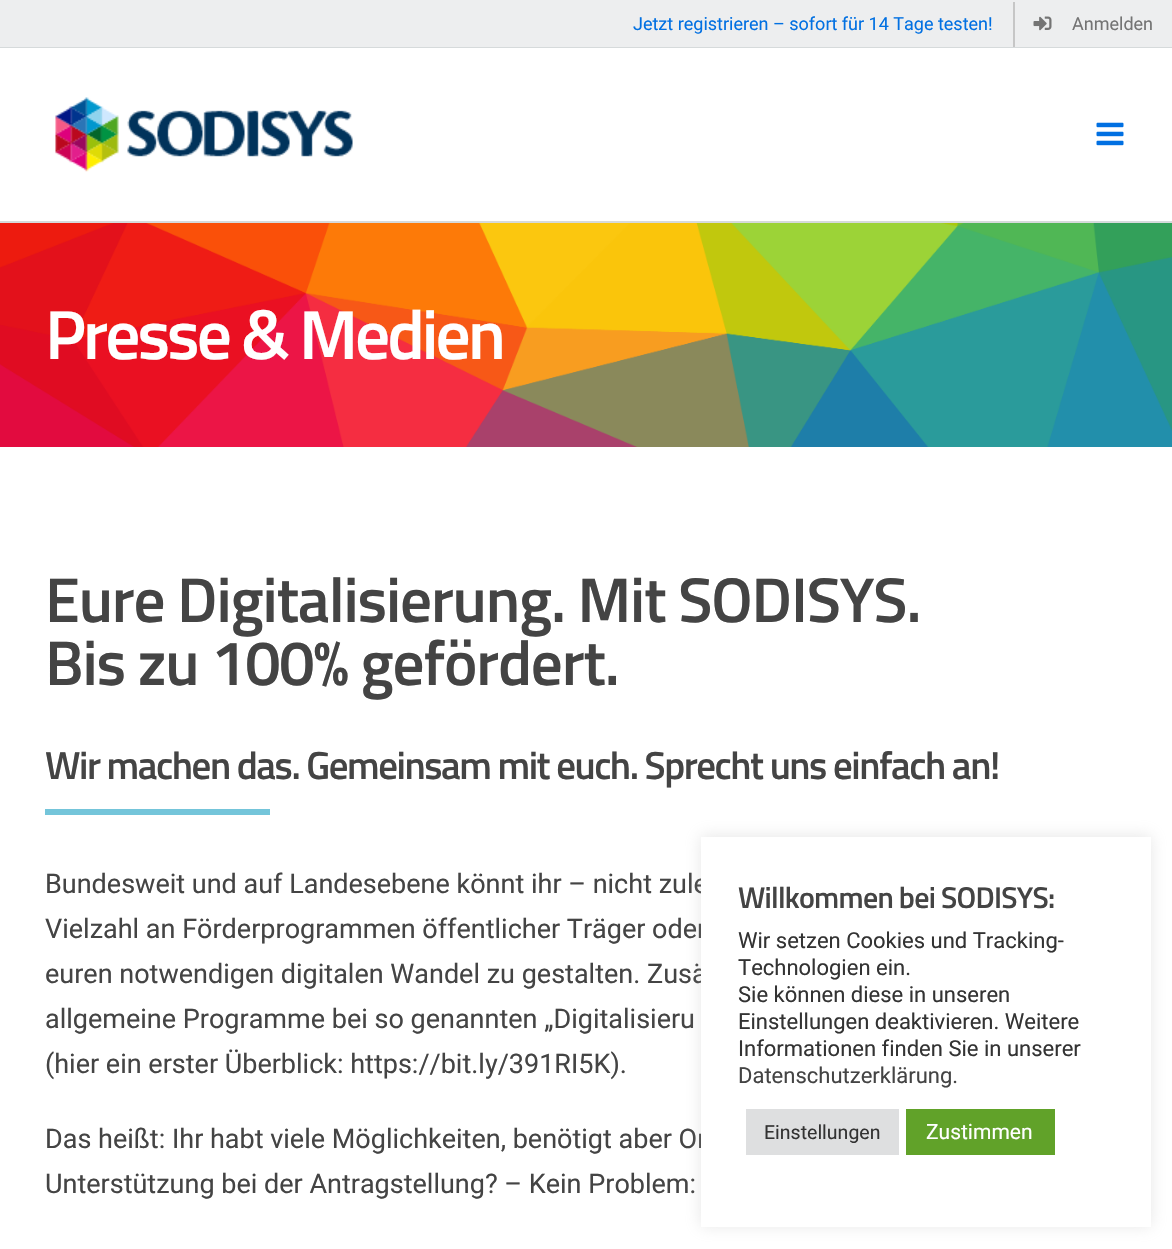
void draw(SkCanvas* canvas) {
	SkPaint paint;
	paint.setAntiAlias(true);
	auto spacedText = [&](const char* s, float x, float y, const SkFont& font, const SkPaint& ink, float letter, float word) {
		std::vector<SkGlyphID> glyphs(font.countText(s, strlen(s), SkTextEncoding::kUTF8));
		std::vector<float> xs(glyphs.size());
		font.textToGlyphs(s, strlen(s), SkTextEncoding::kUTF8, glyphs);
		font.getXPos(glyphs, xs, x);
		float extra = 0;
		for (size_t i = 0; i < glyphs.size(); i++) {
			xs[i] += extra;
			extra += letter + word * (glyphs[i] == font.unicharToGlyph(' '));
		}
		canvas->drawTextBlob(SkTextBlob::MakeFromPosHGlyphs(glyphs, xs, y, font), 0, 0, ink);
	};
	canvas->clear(0xffffffff);
	paint.setColor(0xffedeeef);
	canvas->drawRect(SkRect::MakeXYWH(0, 0, 1172, 47), paint);
	paint.setColor(0xffd6dadb);
	canvas->drawRect(SkRect::MakeXYWH(0, 47, 1172, 1), paint);
	SkFont f1(fontMgr->matchFamilyStyle("Roboto", SkFontStyle::Normal()), 18);
	f1.setSubpixel(true);
	paint.setColor(0xff0170e2);
	canvas->drawString("Jetzt registrieren – sofort für 14 Tage testen!", 633, 30, f1, paint);
	paint.setColor(0xffc6c6c6);
	canvas->drawRect(SkRect::MakeXYWH(1013, 2, 2, 45), paint);
	canvas->drawImageRect(SkImages::DeferredFromEncodedData(SkData::MakeFromFileName("img1.png")), SkRect::MakeXYWH(1033, 16, 19, 15), SkSamplingOptions());
	paint.setColor(0xff747474);
	canvas->drawString("Anmelden", 1072, 30, f1, paint);
	paint.setColor(0xffd6dadb);
	canvas->drawRect(SkRect::MakeXYWH(0, 221, 1172, 2), paint);
	canvas->drawImageRect(SkImages::DeferredFromEncodedData(SkData::MakeFromFileName("img2.png")), SkRect::MakeXYWH(55, 97, 298, 75), SkSamplingOptions());
	canvas->drawImageRect(SkImages::DeferredFromEncodedData(SkData::MakeFromFileName("img3.png")), SkRect::MakeXYWH(1096, 122, 28, 24), SkSamplingOptions());
	canvas->drawImageRect(SkImages::DeferredFromEncodedData(SkData::MakeFromFileName("img4.png")), SkRect::MakeXYWH(0, 223, 1172, 224), SkSamplingOptions());
	SkFont f2(fontMgr->matchFamilyStyle("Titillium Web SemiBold", SkFontStyle(600, SkFontStyle::kNormal_Width, SkFontStyle::kUpright_Slant)), 69.5);
	f2.setSubpixel(true);
	paint.setColor(0xffffffff);
	spacedText("Presse & Medien", 45, 359, f2, paint, -3, 0);
	SkFont f3(fontMgr->matchFamilyStyle("Titillium Web SemiBold", SkFontStyle(600, SkFontStyle::kNormal_Width, SkFontStyle::kUpright_Slant)), 63.2);
	f3.setSubpixel(true);
	paint.setColor(0xff444444);
	spacedText("Eure Digitalisierung. Mit SODISYS.", 45, 622, f3, paint, -1.2, 0);
	spacedText("Bis zu 100% gefördert.", 45, 685, f3, paint, -1.2, 0);
	SkFont f4(fontMgr->matchFamilyStyle("Titillium Web SemiBold", SkFontStyle(600, SkFontStyle::kNormal_Width, SkFontStyle::kUpright_Slant)), 39);
	f4.setSubpixel(true);
	spacedText("Wir machen das. Gemeinsam mit euch. Sprecht uns einfach an!", 45, 779, f4, paint, -1.5, 0);
	paint.setColor(0xff74c5da);
	canvas->drawRect(SkRect::MakeXYWH(45, 809, 225, 6), paint);
	SkFont f5(fontMgr->matchFamilyStyle("Roboto", SkFontStyle::Normal()), 27);
	f5.setSubpixel(true);
	paint.setColor(0xff444444);
	canvas->drawString("Bundesweit und auf Landesebene könnt ihr – nicht zule", 45, 893, f5, paint);
	canvas->drawString("Vielzahl an Förderprogrammen öffentlicher Träger oder", 45, 938, f5, paint);
	canvas->drawString("euren notwendigen digitalen Wandel zu gestalten. Zusä", 45, 983, f5, paint);
	canvas->drawString("allgemeine Programme bei so genannten „Digitalisieru", 45, 1028, f5, paint);
	canvas->drawString("(hier ein erster Überblick: https://bit.ly/391RI5K).", 45, 1073, f5, paint);
	canvas->drawString("Das heißt: Ihr habt viele Möglichkeiten, benötigt aber Or", 45, 1148, f5, paint);
	canvas->drawString("Unterstützung bei der Antragstellung? – Kein Problem:", 45, 1193, f5, paint);
	paint.setColor(0x4dacabab);
	paint.setMaskFilter(SkMaskFilter::MakeBlur(kNormal_SkBlurStyle, 7.5));
	canvas->drawRect(SkRect::MakeXYWH(701, 836, 450, 390), paint);
	paint.setMaskFilter(nullptr);
	paint.setColor(0xffffffff);
	canvas->drawRect(SkRect::MakeXYWH(701, 837, 450, 390), paint);
	SkFont f6(fontMgr->matchFamilyStyle("Titillium Web SemiBold", SkFontStyle(600, SkFontStyle::kNormal_Width, SkFontStyle::kUpright_Slant)), 30);
	f6.setSubpixel(true);
	paint.setColor(0xff444444);
	spacedText("Willkommen bei SODISYS:", 738, 908, f6, paint, -0.75, 0);
	SkFont f7(fontMgr->matchFamilyStyle("Roboto", SkFontStyle::Normal()), 22);
	f7.setSubpixel(true);
	paint.setColor(0xff333333);
	canvas->drawString("Wir setzen Cookies und Tracking-", 738, 948, f7, paint);
	canvas->drawString("Technologien ein.", 738, 975, f7, paint);
	canvas->drawString("Sie können diese in unseren", 738, 1002, f7, paint);
	canvas->drawString("Einstellungen deaktivieren. Weitere", 738, 1029, f7, paint);
	canvas->drawString("Informationen finden Sie in unserer", 738, 1056, f7, paint);
	paint.setColor(0xff444444);
	canvas->drawString("Datenschutzerklärung.", 738, 1083, f7, paint);
	paint.setColor(0xffdedfe0);
	canvas->drawRect(SkRect::MakeXYWH(746, 1109, 153, 46), paint);
	SkFont f8(fontMgr->matchFamilyStyle("Roboto", SkFontStyle::Normal()), 19.5);
	f8.setSubpixel(true);
	paint.setColor(0xff333333);
	canvas->drawString("Einstellungen", 764, 1139, f8, paint);
	paint.setColor(0xff61a229);
	canvas->drawRect(SkRect::MakeXYWH(906, 1109, 149, 46), paint);
	SkFont f9(fontMgr->matchFamilyStyle("Roboto", SkFontStyle::Normal()), 21);
	f9.setSubpixel(true);
	paint.setColor(0xffffffff);
	canvas->drawString("Zustimmen", 926, 1139, f9, paint);
}
